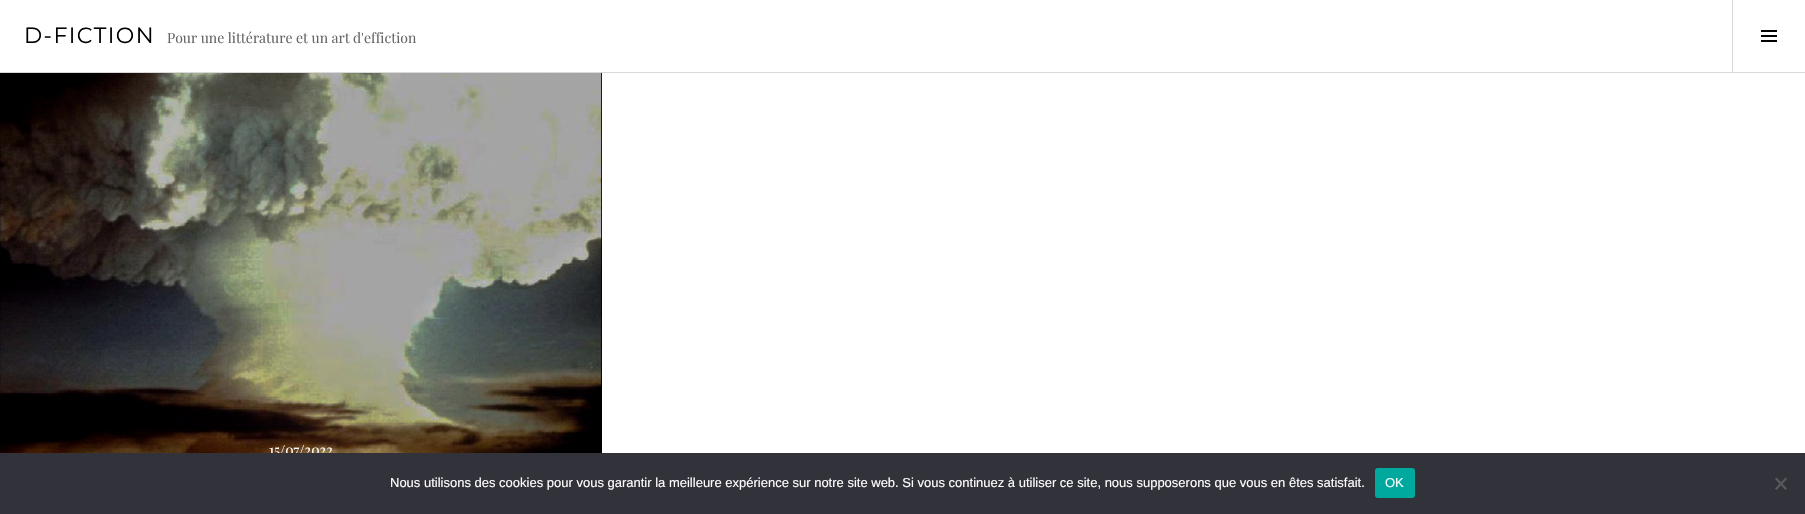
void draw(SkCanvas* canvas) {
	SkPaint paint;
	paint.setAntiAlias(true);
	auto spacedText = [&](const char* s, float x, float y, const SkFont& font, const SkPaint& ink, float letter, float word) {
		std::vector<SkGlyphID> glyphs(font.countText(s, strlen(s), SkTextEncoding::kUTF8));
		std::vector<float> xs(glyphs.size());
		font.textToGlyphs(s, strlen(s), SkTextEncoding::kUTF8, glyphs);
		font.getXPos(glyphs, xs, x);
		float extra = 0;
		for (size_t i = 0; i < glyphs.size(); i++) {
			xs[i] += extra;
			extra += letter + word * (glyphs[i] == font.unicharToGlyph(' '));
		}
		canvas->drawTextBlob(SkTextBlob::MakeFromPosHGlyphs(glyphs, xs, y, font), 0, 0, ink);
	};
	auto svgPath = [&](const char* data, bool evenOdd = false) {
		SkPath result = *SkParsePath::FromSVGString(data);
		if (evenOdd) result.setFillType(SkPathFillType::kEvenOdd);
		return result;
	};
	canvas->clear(0xffffffff);
	paint.setColor(0xffd9d9d9);
	canvas->drawRect(SkRect::MakeXYWH(0, 72, 1805, 1), paint);
	SkFont f1(fontMgr->matchFamilyStyle("Montserrat", SkFontStyle::Normal()), 22);
	f1.setSubpixel(true);
	paint.setColor(0xff000000);
	spacedText("D-FICTION", 24, 43, f1, paint, 1.4, 0);
	SkFont f2(fontMgr->matchFamilyStyle("Playfair Display", SkFontStyle::Normal()), 14);
	f2.setSubpixel(true);
	paint.setColor(0xff666666);
	canvas->drawString("Pour une littérature et un art d'effiction", 167, 43, f2, paint);
	paint.setColor(0xffd9d9d9);
	canvas->drawRect(SkRect::MakeXYWH(1732, 0, 1, 72), paint);
	canvas->drawImageRect(SkImages::DeferredFromEncodedData(SkData::MakeFromFileName("img1.png")), SkRect::MakeXYWH(1761, 30, 16, 12), SkSamplingOptions());
	paint.setColor(0xff000000);
	canvas->drawRect(SkRect::MakeXYWH(0, 73, 602, 380), paint);
	canvas->drawImageRect(SkImages::DeferredFromEncodedData(SkData::MakeFromFileName("img2.png")), SkRect::MakeXYWH(0, 73, 602, 380), SkSamplingOptions());
	paint.setColor(0xffffffff);
	canvas->drawString("15/07/2022", 269, 455, f2, paint);
	paint.setColor(0xff32323a);
	canvas->drawRect(SkRect::MakeXYWH(0, 453, 1805, 61), paint);
	SkFont f3(fontMgr->matchFamilyStyle("Liberation Sans", SkFontStyle::Normal()), 13);
	f3.setSubpixel(true);
	paint.setColor(0xffffffff);
	canvas->drawString("Nous utilisons des cookies pour vous garantir la meilleure expérience sur notre site web. Si vous continuez à utiliser ce site, nous supposerons que vous en êtes satisfait.", 390, 487, f3, paint);
	paint.setColor(0xff00a99d);
	canvas->drawRoundRect(SkRect::MakeXYWH(1375, 468, 40, 30), 3, 3, paint);
	paint.setColor(0xffffffff);
	canvas->drawString("OK", 1385, 487, f3, paint);
	paint.setColor(0xff59595d);
	canvas->drawPath(svgPath("M1785.5 477.5L1787 479L1776.5 490L1775 488.5Z"), paint);
	canvas->drawPath(svgPath("M1775 479L1776.5 477.5L1787 488.5L1785.5 490Z"), paint);
}
